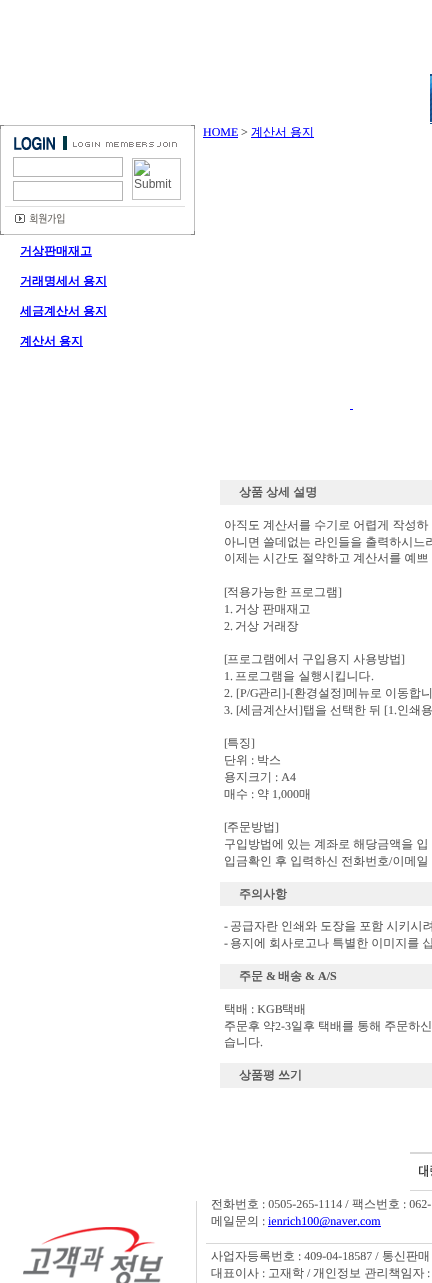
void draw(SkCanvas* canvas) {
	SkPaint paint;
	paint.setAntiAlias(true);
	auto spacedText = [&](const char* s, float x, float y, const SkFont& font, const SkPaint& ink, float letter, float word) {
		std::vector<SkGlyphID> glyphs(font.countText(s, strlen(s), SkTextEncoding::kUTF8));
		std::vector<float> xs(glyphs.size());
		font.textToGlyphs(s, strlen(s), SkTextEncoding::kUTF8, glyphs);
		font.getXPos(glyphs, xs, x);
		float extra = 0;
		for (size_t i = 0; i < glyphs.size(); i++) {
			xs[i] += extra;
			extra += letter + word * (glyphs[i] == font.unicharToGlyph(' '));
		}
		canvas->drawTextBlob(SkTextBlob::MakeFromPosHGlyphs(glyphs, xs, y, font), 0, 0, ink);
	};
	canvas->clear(0xffffffff);
	canvas->drawImageRect(SkImages::DeferredFromEncodedData(SkData::MakeFromFileName("img1.png")), SkRect::MakeXYWH(430, 74, 2, 50), SkSamplingOptions());
	canvas->drawImageRect(SkImages::DeferredFromEncodedData(SkData::MakeFromFileName("img2.png")), SkRect::MakeXYWH(0, 125, 195, 110), SkSamplingOptions());
	paint.setStroke(true);
	paint.setStrokeWidth(1);
	paint.setColor(0xffb4b4b4);
	canvas->drawRect(SkRect::MakeXYWH(13.5, 157.5, 109, 19), paint);
	canvas->drawImageRect(SkImages::DeferredFromEncodedData(SkData::MakeFromFileName("img3.png")), SkRect::MakeXYWH(132, 158, 49, 42), SkSamplingOptions());
	canvas->drawRect(SkRect::MakeXYWH(13.5, 181.5, 109, 19), paint);
	canvas->drawImageRect(SkImages::DeferredFromEncodedData(SkData::MakeFromFileName("img4.png")), SkRect::MakeXYWH(15, 213, 50, 11), SkSamplingOptions());
	paint.setStroke(false);
	paint.setColor(0xff0000ff);
	canvas->drawRect(SkRect::MakeXYWH(20, 256, 72, 1), paint);
	SkFont f1(fontMgr->matchFamilyStyle("WenQuanYi Zen Hei", SkFontStyle::Bold()), 12);
	f1.setSubpixel(true);
	canvas->drawString("거상판매재고", 20, 255, f1, paint);
	canvas->drawRect(SkRect::MakeXYWH(20, 286, 87, 1), paint);
	spacedText("거래명세서 용지", 20, 285, f1, paint, 0, -0.5);
	canvas->drawRect(SkRect::MakeXYWH(20, 316, 87, 1), paint);
	spacedText("세금계산서 용지", 20, 315, f1, paint, 0, -0.5);
	canvas->drawRect(SkRect::MakeXYWH(20, 346, 63, 1), paint);
	spacedText("계산서 용지", 20, 345, f1, paint, 0, -0.5);
	SkFont f2(fontMgr->matchFamilyStyle("Liberation Serif", SkFontStyle::Normal()), 12);
	f2.setSubpixel(true);
	canvas->drawString("HOME", 203, 136, f2, paint);
	canvas->drawRect(SkRect::MakeXYWH(203, 137, 35, 1), paint);
	paint.setColor(0xff595959);
	canvas->drawString(">", 241, 136, f2, paint);
	paint.setColor(0xff0000ff);
	canvas->drawRect(SkRect::MakeXYWH(251, 137, 63, 1), paint);
	SkFont f3(fontMgr->matchFamilyStyle("WenQuanYi Zen Hei", SkFontStyle(500, SkFontStyle::kNormal_Width, SkFontStyle::kUpright_Slant)), 12);
	f3.setSubpixel(true);
	spacedText("계산서 용지", 251, 136, f3, paint, 0, -0.5);
	canvas->drawRect(SkRect::MakeXYWH(350, 409, 3, 1), paint);
	paint.setColor(0xfff0f0f0);
	canvas->drawRect(SkRect::MakeXYWH(220, 480, 212, 25), paint);
	paint.setColor(0xff595959);
	spacedText("상품 상세 설명", 239, 496, f1, paint, 0, -0.5);
	spacedText("아직도 계산서를 수기로 어렵게 작성하", 224, 529, f3, paint, 0, -0.5);
	spacedText("아니면 쓸데없는 라인들을 출력하시느라", 224, 546, f3, paint, 0, -0.5);
	spacedText("이제는 시간도 절약하고 계산서를 예쁘", 224, 562, f3, paint, 0, -0.5);
	canvas->drawString("[", 224, 596, f2, paint);
	spacedText("적용가능한 프로그램", 227, 596, f3, paint, 0, -0.5);
	canvas->drawString("]", 338, 596, f2, paint);
	canvas->drawString("1.", 224, 613, f2, paint);
	canvas->drawString("거상 판매재고", 235, 613, f3, paint);
	canvas->drawString("2.", 224, 630, f2, paint);
	canvas->drawString("거상 거래장", 235, 630, f3, paint);
	canvas->drawString("[", 224, 663, f2, paint);
	spacedText("프로그램에서 구입용지 사용방법", 227, 663, f3, paint, 0, -0.5);
	canvas->drawString("]", 401, 663, f2, paint);
	canvas->drawString("1.", 224, 680, f2, paint);
	canvas->drawString("프로그램을 실행시킵니다", 235, 680, f3, paint);
	canvas->drawString(".", 371, 680, f2, paint);
	canvas->drawString("2. [P/G", 224, 697, f2, paint);
	canvas->drawString("관리", 258, 697, f3, paint);
	canvas->drawString("]-[", 282, 697, f2, paint);
	canvas->drawString("환경설정", 294, 697, f3, paint);
	canvas->drawString("]", 342, 697, f2, paint);
	canvas->drawString("메뉴로", 346, 697, f3, paint);
	canvas->drawString("이동합니", 385, 697, f3, paint);
	canvas->drawString("3. [", 224, 714, f2, paint);
	canvas->drawString("세금계산서", 239, 714, f3, paint);
	canvas->drawString("]", 299, 714, f2, paint);
	canvas->drawString("탭을", 303, 714, f3, paint);
	canvas->drawString("선택한", 330, 714, f3, paint);
	canvas->drawString("뒤", 369, 714, f3, paint);
	canvas->drawString("[1.", 384, 714, f2, paint);
	canvas->drawString("인쇄용", 397, 714, f3, paint);
	canvas->drawString("[", 224, 747, f2, paint);
	canvas->drawString("특징", 227, 747, f3, paint);
	canvas->drawString("]", 251, 747, f2, paint);
	canvas->drawString("단위", 224, 764, f3, paint);
	canvas->drawString(":", 251, 764, f2, paint);
	canvas->drawString("박스", 257, 764, f3, paint);
	canvas->drawString("용지크기", 224, 781, f3, paint);
	canvas->drawString(": A4", 275, 781, f2, paint);
	canvas->drawString("매수", 224, 798, f3, paint);
	canvas->drawString(":", 251, 798, f2, paint);
	canvas->drawString("약", 257, 798, f3, paint);
	canvas->drawString("1,000", 272, 798, f2, paint);
	canvas->drawString("매", 299, 798, f3, paint);
	canvas->drawString("[", 224, 831, f2, paint);
	canvas->drawString("주문방법", 227, 831, f3, paint);
	canvas->drawString("]", 275, 831, f2, paint);
	spacedText("구입방법에 있는 계좌로 해당금액을 입", 224, 848, f3, paint, 0, -0.5);
	spacedText("입금확인 후 입력하신 전화번호 이메일", 224, 865, f3, paint, 0, -0.5);
	canvas->drawString("/", 389, 865, f2, paint);
	paint.setColor(0xfff0f0f0);
	canvas->drawRect(SkRect::MakeXYWH(220, 882, 212, 24), paint);
	paint.setColor(0xff595959);
	canvas->drawString("주의사항", 239, 898, f1, paint);
	canvas->drawString("-", 224, 930, f2, paint);
	spacedText("공급자란 인쇄와 도장을 포함 시키시려", 230, 930, f3, paint, 0, -0.5);
	canvas->drawString("-", 224, 947, f2, paint);
	spacedText("용지에 회사로고나 특별한 이미지를 삽", 230, 947, f3, paint, 0, -0.5);
	paint.setColor(0xfff0f0f0);
	canvas->drawRect(SkRect::MakeXYWH(220, 964, 212, 25), paint);
	paint.setColor(0xff595959);
	canvas->drawString("주문", 239, 980, f1, paint);
	SkFont f4(fontMgr->matchFamilyStyle("Liberation Serif", SkFontStyle::Bold()), 12);
	f4.setSubpixel(true);
	canvas->drawString("&", 266, 980, f4, paint);
	canvas->drawString("배송", 278, 980, f1, paint);
	canvas->drawString("& A/S", 305, 980, f4, paint);
	canvas->drawString("택배", 224, 1013, f3, paint);
	canvas->drawString(": KGB", 251, 1013, f2, paint);
	canvas->drawString("택배", 282, 1013, f3, paint);
	spacedText("주문후 약", 224, 1030, f3, paint, 0, -0.5);
	canvas->drawString("2-3", 275, 1030, f2, paint);
	spacedText("일후 택배를 통해 주문하신", 291, 1030, f3, paint, 0, -0.5);
	canvas->drawString("습니다", 224, 1046, f3, paint);
	canvas->drawString(".", 260, 1046, f2, paint);
	paint.setColor(0xfff0f0f0);
	canvas->drawRect(SkRect::MakeXYWH(220, 1063, 212, 25), paint);
	paint.setColor(0xff595959);
	spacedText("상품평 쓰기", 239, 1079, f1, paint, 0, -0.5);
	canvas->drawImageRect(SkImages::DeferredFromEncodedData(SkData::MakeFromFileName("img5.png")), SkRect::MakeXYWH(410, 1152, 22, 39), SkSamplingOptions());
	canvas->drawImageRect(SkImages::DeferredFromEncodedData(SkData::MakeFromFileName("img6.png")), SkRect::MakeXYWH(23, 1201, 409, 82), SkSamplingOptions());
	canvas->drawString("전화번호", 211, 1208, f3, paint);
	canvas->drawString(": 0505-265-1114 /", 262, 1208, f2, paint);
	canvas->drawString("팩스번호", 352, 1208, f3, paint);
	canvas->drawString(": 062-", 403, 1208, f2, paint);
	canvas->drawString("메일문의", 211, 1225, f3, paint);
	canvas->drawString(":", 262, 1225, f2, paint);
	paint.setColor(0xff0000ff);
	canvas->drawRect(SkRect::MakeXYWH(268, 1226, 113, 1), paint);
	canvas->drawString("ienrich100@naver.com", 268, 1225, f2, paint);
	paint.setColor(0xff595959);
	canvas->drawString("사업자등록번호", 211, 1260, f3, paint);
	canvas->drawString(": 409-04-18587 /", 298, 1260, f2, paint);
	canvas->drawString("통신판매", 382, 1260, f3, paint);
	canvas->drawString("대표이사", 211, 1277, f3, paint);
	canvas->drawString(":", 262, 1277, f2, paint);
	canvas->drawString("고재학", 268, 1277, f3, paint);
	canvas->drawString("/", 307, 1277, f2, paint);
	canvas->drawString("개인정보 관리책임자", 313, 1277, f3, paint);
	canvas->drawString(":", 427, 1277, f2, paint);
}
